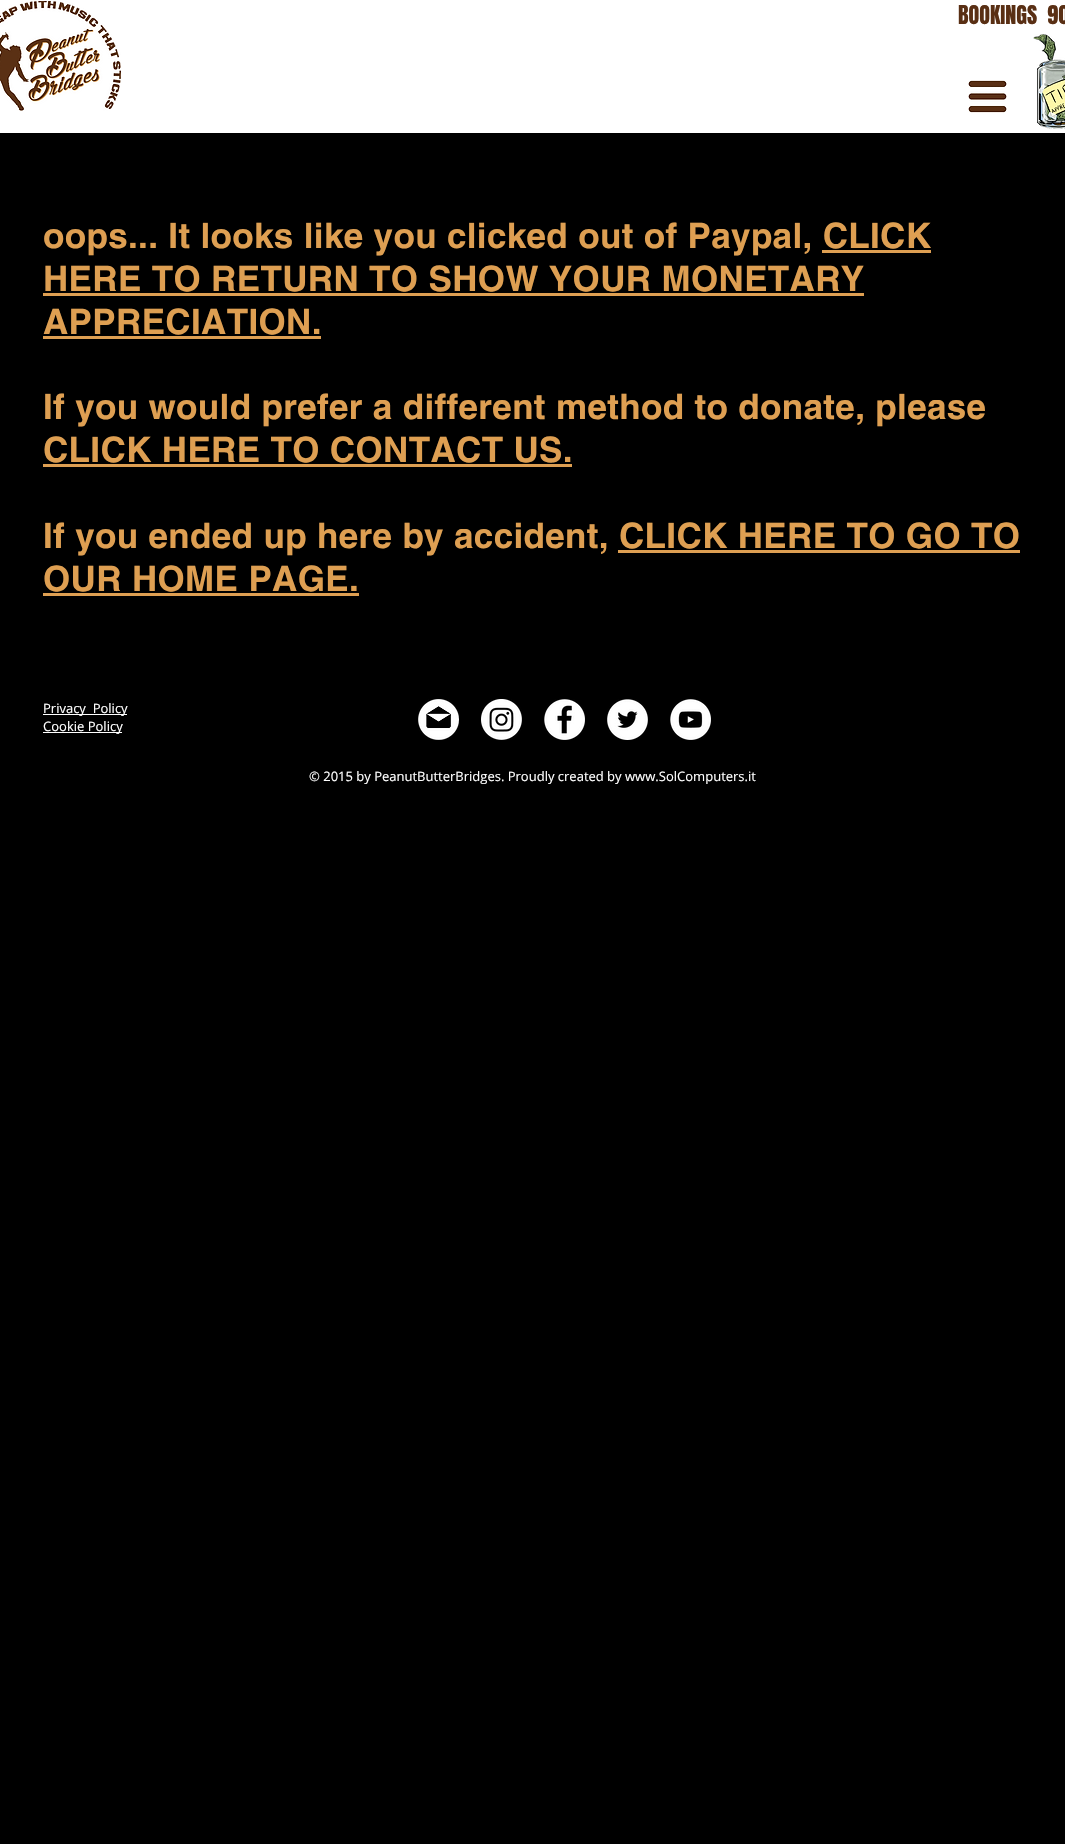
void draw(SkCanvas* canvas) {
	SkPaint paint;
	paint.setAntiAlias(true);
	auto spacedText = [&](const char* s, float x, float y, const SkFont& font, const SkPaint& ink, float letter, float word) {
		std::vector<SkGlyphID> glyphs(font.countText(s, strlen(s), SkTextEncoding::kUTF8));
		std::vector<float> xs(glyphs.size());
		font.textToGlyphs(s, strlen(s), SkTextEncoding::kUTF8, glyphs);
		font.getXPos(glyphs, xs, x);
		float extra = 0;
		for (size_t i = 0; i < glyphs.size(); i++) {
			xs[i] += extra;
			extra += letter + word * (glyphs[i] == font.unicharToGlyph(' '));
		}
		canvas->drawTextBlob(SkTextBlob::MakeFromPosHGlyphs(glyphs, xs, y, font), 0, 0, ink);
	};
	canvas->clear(0xff000000);
	paint.setColor(0xffffffff);
	canvas->drawRect(SkRect::MakeXYWH(0, 0, 1065, 133), paint);
	canvas->drawImageRect(SkImages::DeferredFromEncodedData(SkData::MakeFromFileName("img1.png")), SkRect::MakeXYWH(0, 1, 121, 110), SkSamplingOptions());
	SkFont f1(fontMgr->matchFamilyStyle("Anton", SkFontStyle::Normal()), 22);
	f1.setSubpixel(true);
	paint.setColor(0xff592f14);
	canvas->drawString("BOOKINGS  90", 958, 24, f1, paint);
	canvas->drawImageRect(SkImages::DeferredFromEncodedData(SkData::MakeFromFileName("img2.png")), SkRect::MakeXYWH(968, 80, 39, 33), SkSamplingOptions());
	canvas->drawImageRect(SkImages::DeferredFromEncodedData(SkData::MakeFromFileName("img3.png")), SkRect::MakeXYWH(1033, 34, 32, 95), SkSamplingOptions());
	SkFont f2(fontMgr->matchFamilyStyle("helvetica", SkFontStyle::Bold()), 35);
	f2.setSubpixel(true);
	paint.setColor(0xffde9f52);
	spacedText("oops... It looks like you clicked out of Paypal, CLICK", 43, 248, f2, paint, 0.35, 0);
	spacedText("HERE TO RETURN TO SHOW YOUR MONETARY", 43, 291, f2, paint, 0.35, 0);
	canvas->drawRect(SkRect::MakeXYWH(822, 250, 109, 3), paint);
	canvas->drawRect(SkRect::MakeXYWH(43, 293, 821, 3), paint);
	spacedText("APPRECIATION.", 43, 334, f2, paint, 0.35, 0);
	canvas->drawRect(SkRect::MakeXYWH(43, 336, 278, 3), paint);
	spacedText("If you would prefer a different method to donate, please", 43, 419, f2, paint, 0.35, 0);
	spacedText("CLICK HERE TO CONTACT US.", 43, 462, f2, paint, 0.35, 0);
	canvas->drawRect(SkRect::MakeXYWH(43, 464, 529, 3), paint);
	spacedText("If you ended up here by accident, CLICK HERE TO GO TO", 43, 548, f2, paint, 0.35, 0);
	canvas->drawRect(SkRect::MakeXYWH(618, 550, 402, 3), paint);
	spacedText("OUR HOME PAGE.", 43, 591, f2, paint, 0.35, 0);
	canvas->drawRect(SkRect::MakeXYWH(43, 593, 316, 3), paint);
	paint.setColor(0xffffffff);
	canvas->drawRect(SkRect::MakeXYWH(43, 714, 84, 1), paint);
	SkFont f3(fontMgr->matchFamilyStyle("Open Sans", SkFontStyle::Normal()), 13);
	f3.setSubpixel(true);
	canvas->drawString("Privacy  Policy", 43, 713, f3, paint);
	canvas->drawRect(SkRect::MakeXYWH(43, 732, 79, 1), paint);
	canvas->drawString("Cookie Policy", 43, 731, f3, paint);
	canvas->drawImageRect(SkImages::DeferredFromEncodedData(SkData::MakeFromFileName("img4.png")), SkRect::MakeXYWH(418, 699, 41, 41), SkSamplingOptions());
	canvas->drawImageRect(SkImages::DeferredFromEncodedData(SkData::MakeFromFileName("img5.png")), SkRect::MakeXYWH(481, 699, 41, 41), SkSamplingOptions());
	canvas->drawImageRect(SkImages::DeferredFromEncodedData(SkData::MakeFromFileName("img6.png")), SkRect::MakeXYWH(544, 699, 41, 41), SkSamplingOptions());
	canvas->drawImageRect(SkImages::DeferredFromEncodedData(SkData::MakeFromFileName("img7.png")), SkRect::MakeXYWH(607, 699, 41, 41), SkSamplingOptions());
	canvas->drawImageRect(SkImages::DeferredFromEncodedData(SkData::MakeFromFileName("img8.png")), SkRect::MakeXYWH(670, 699, 41, 41), SkSamplingOptions());
	canvas->drawString("© 2015 by PeanutButterBridges. Proudly created by www.SolComputers.it", 309, 781, f3, paint);
}
